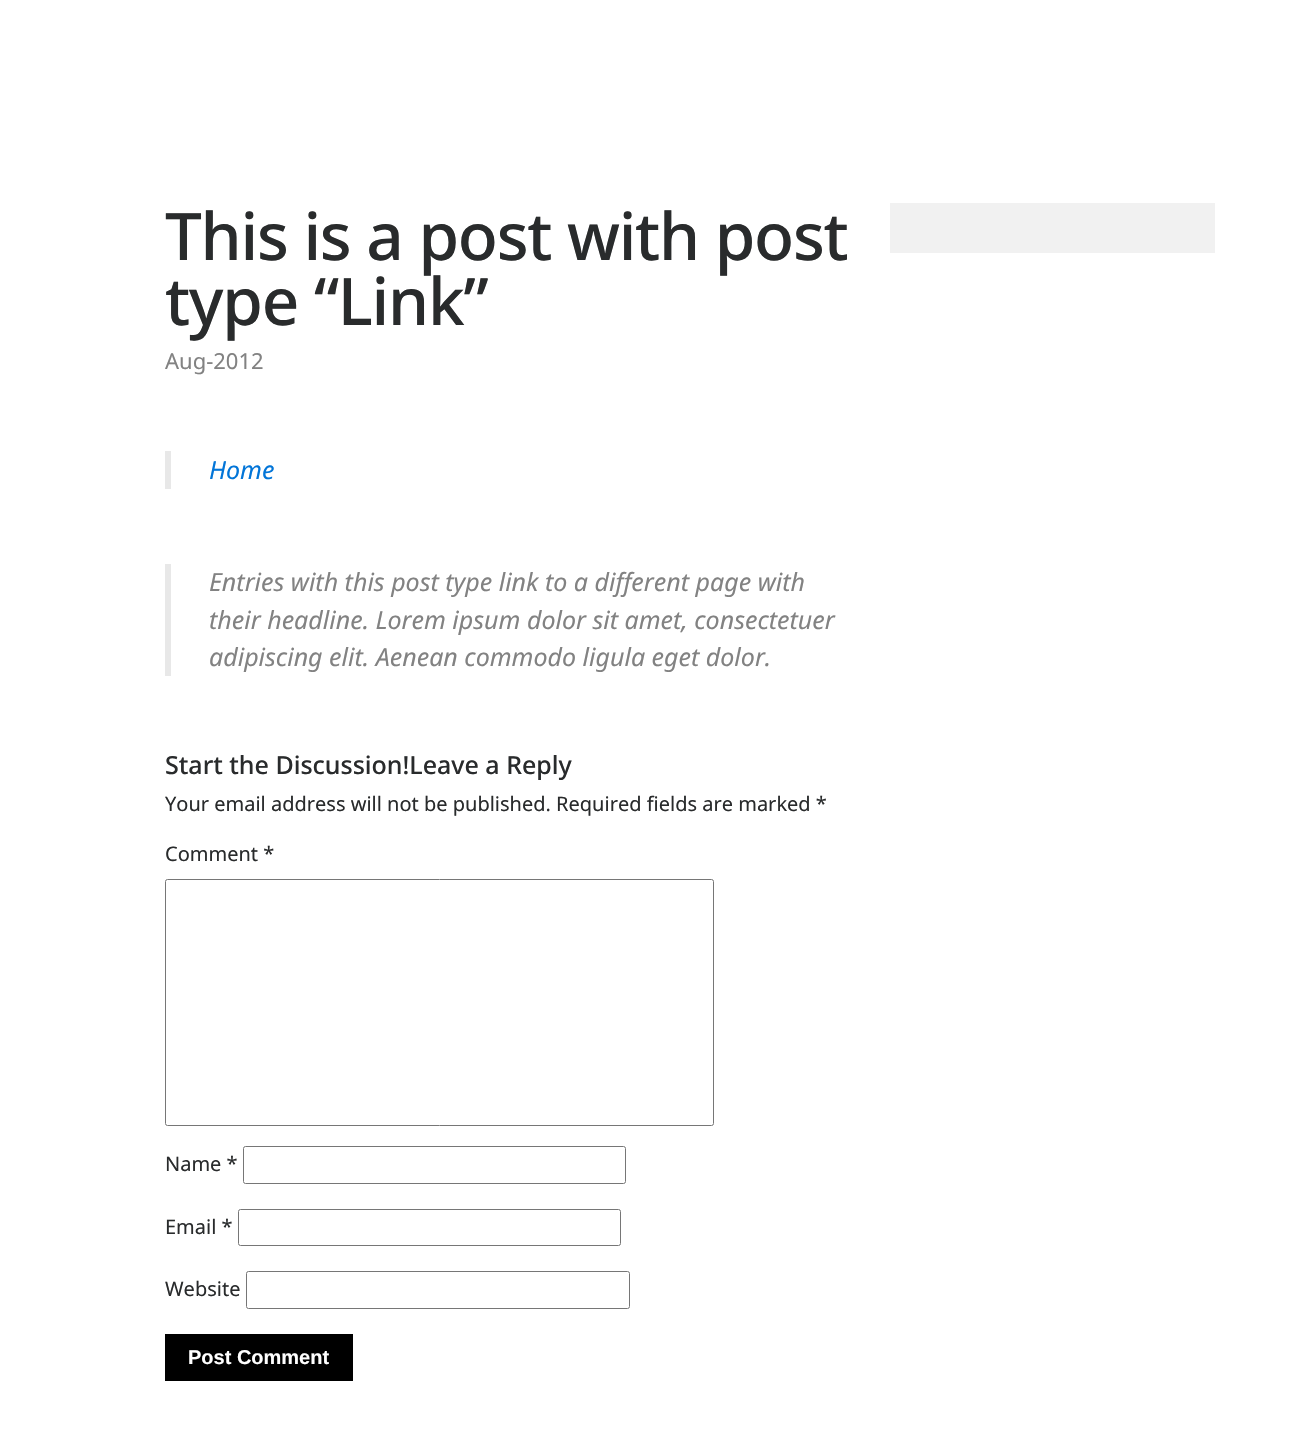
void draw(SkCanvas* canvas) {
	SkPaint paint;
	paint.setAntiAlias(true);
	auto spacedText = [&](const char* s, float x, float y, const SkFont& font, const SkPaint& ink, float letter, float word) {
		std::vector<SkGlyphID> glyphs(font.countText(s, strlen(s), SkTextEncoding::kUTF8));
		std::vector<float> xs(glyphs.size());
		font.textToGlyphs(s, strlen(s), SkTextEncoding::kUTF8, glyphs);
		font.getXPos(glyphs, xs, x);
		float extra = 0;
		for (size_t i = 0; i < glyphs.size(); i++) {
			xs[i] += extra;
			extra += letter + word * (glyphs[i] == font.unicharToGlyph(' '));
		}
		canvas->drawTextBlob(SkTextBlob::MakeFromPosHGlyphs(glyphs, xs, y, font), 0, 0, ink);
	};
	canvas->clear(0xffffffff);
	SkFont f1(fontMgr->matchFamilyStyle("Noto Sans", SkFontStyle(500, SkFontStyle::kNormal_Width, SkFontStyle::kUpright_Slant)), 65.6);
	f1.setSubpixel(true);
	paint.setColor(0xff292b2c);
	spacedText("This is a post with post", 165, 260, f1, paint, -1.25, 0);
	spacedText("type “Link”", 165, 325, f1, paint, -1.25, 0);
	SkFont f2(fontMgr->matchFamilyStyle("Noto Sans", SkFontStyle::Normal()), 22);
	f2.setSubpixel(true);
	paint.setColor(0xff828282);
	canvas->drawString("Aug-2012", 165, 369, f2, paint);
	paint.setColor(0xffe8e8e8);
	canvas->drawRect(SkRect::MakeXYWH(165, 451, 6, 38), paint);
	SkFont f3(fontMgr->matchFamilyStyle("Noto Sans", SkFontStyle::Italic()), 25);
	f3.setSubpixel(true);
	paint.setColor(0xff0275d8);
	canvas->drawString("Home", 209, 479, f3, paint);
	paint.setColor(0xffe8e8e8);
	canvas->drawRect(SkRect::MakeXYWH(165, 564, 6, 112), paint);
	paint.setColor(0xff828282);
	canvas->drawString("Entries with this post type link to a different page with", 209, 591, f3, paint);
	canvas->drawString("their headline. Lorem ipsum dolor sit amet, consectetuer", 209, 629, f3, paint);
	canvas->drawString("adipiscing elit. Aenean commodo ligula eget dolor.", 209, 666, f3, paint);
	SkFont f4(fontMgr->matchFamilyStyle("Noto Sans", SkFontStyle(500, SkFontStyle::kNormal_Width, SkFontStyle::kUpright_Slant)), 25);
	f4.setSubpixel(true);
	paint.setColor(0xff292b2c);
	canvas->drawString("Start the Discussion!Leave a Reply", 165, 774, f4, paint);
	SkFont f5(fontMgr->matchFamilyStyle("Noto Sans", SkFontStyle::Normal()), 20);
	f5.setSubpixel(true);
	canvas->drawString("Your email address will not be published. Required fields are marked *", 165, 811, f5, paint);
	canvas->drawString("Comment *", 165, 861, f5, paint);
	paint.setStroke(true);
	paint.setStrokeWidth(1);
	paint.setColor(0xff767676);
	canvas->drawRoundRect(SkRect::MakeXYWH(165.5, 879.5, 548, 246), 2, 2, paint);
	paint.setStroke(false);
	paint.setColor(0xff292b2c);
	canvas->drawString("Name *", 165, 1171, f5, paint);
	paint.setStroke(true);
	paint.setColor(0xff767676);
	canvas->drawRoundRect(SkRect::MakeXYWH(243.5, 1146.5, 382, 37), 2, 2, paint);
	paint.setStroke(false);
	paint.setColor(0xff292b2c);
	canvas->drawString("Email *", 165, 1234, f5, paint);
	paint.setStroke(true);
	paint.setColor(0xff767676);
	canvas->drawRoundRect(SkRect::MakeXYWH(238.5, 1209.5, 382, 36), 2, 2, paint);
	paint.setStroke(false);
	paint.setColor(0xff292b2c);
	canvas->drawString("Website", 165, 1296, f5, paint);
	paint.setStroke(true);
	paint.setColor(0xff767676);
	canvas->drawRoundRect(SkRect::MakeXYWH(246.5, 1271.5, 383, 37), 2, 2, paint);
	paint.setStroke(false);
	paint.setColor(0xff000000);
	canvas->drawRect(SkRect::MakeXYWH(165, 1334, 188, 47), paint);
	SkFont f6(fontMgr->matchFamilyStyle("Liberation Sans", SkFontStyle::Bold()), 20);
	f6.setSubpixel(true);
	paint.setColor(0xffffffff);
	canvas->drawString("Post Comment", 188, 1364, f6, paint);
	paint.setColor(0xfff1f1f1);
	canvas->drawRect(SkRect::MakeXYWH(890, 203, 325, 50), paint);
}
